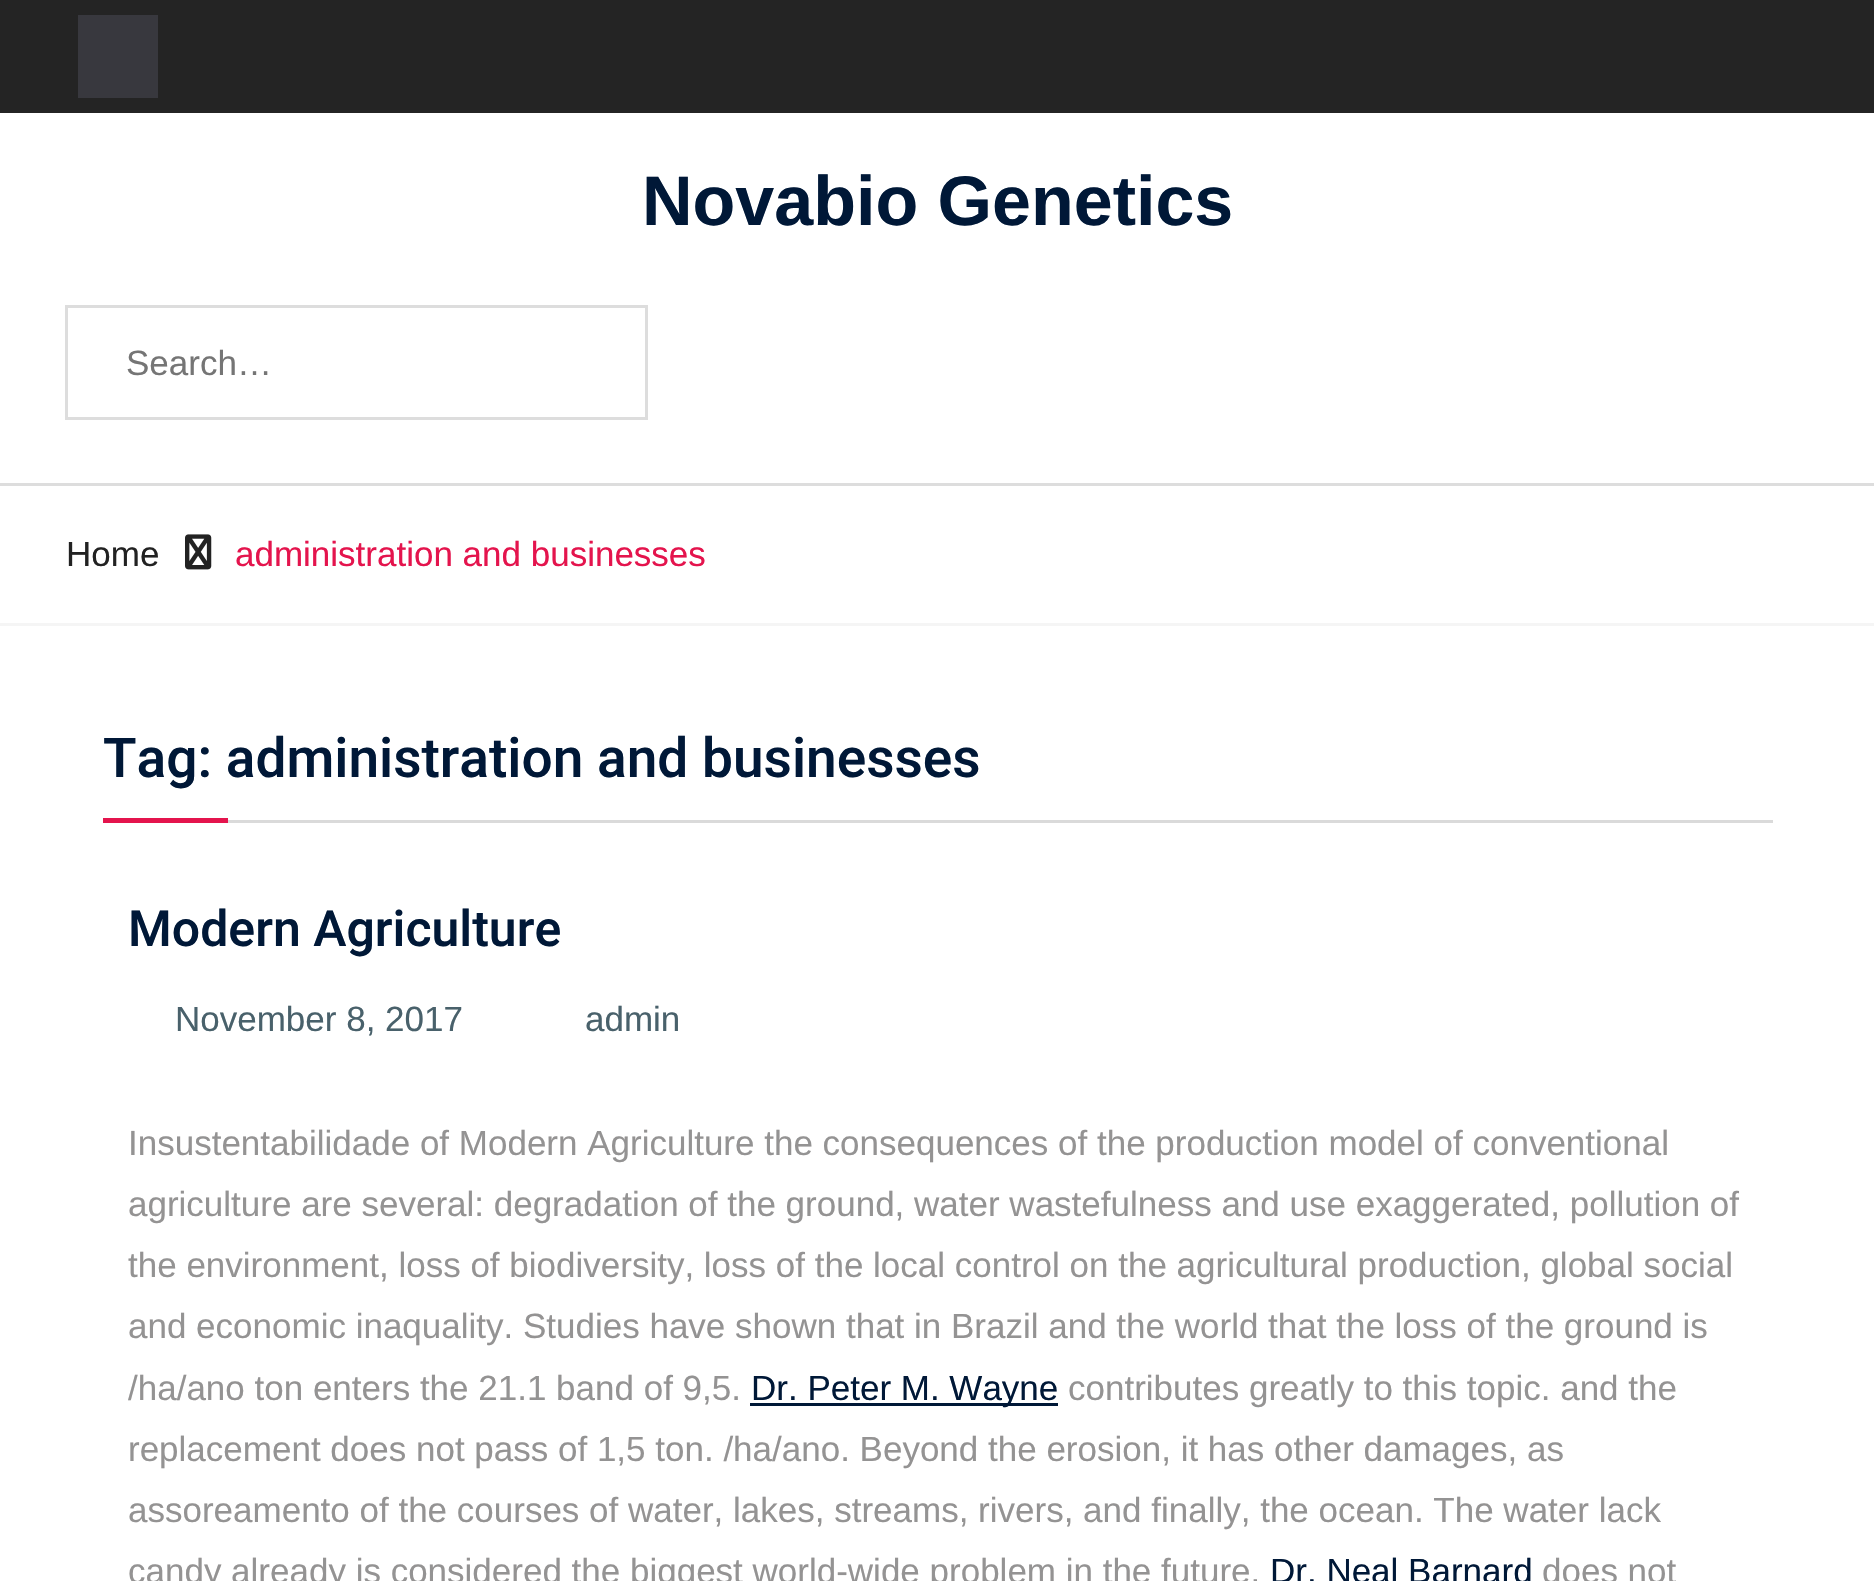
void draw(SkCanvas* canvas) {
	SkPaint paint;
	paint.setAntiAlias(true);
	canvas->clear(0xffffffff);
	paint.setColor(0xff242424);
	canvas->drawRect(SkRect::MakeXYWH(0, 0, 1874, 113), paint);
	paint.setColor(0xff38383e);
	canvas->drawRect(SkRect::MakeXYWH(78, 15, 80, 83), paint);
	paint.setColor(0xffdddddd);
	canvas->drawRect(SkRect::MakeXYWH(0, 483, 1874, 3), paint);
	SkFont f1(fontMgr->matchFamilyStyle("Liberation Sans", SkFontStyle::Bold()), 70);
	f1.setSubpixel(true);
	paint.setColor(0xff001837);
	canvas->drawString("Novabio Genetics", 642, 225, f1, paint);
	paint.setStroke(true);
	paint.setStrokeWidth(3);
	paint.setColor(0xffdddddd);
	canvas->drawRect(SkRect::MakeXYWH(66.5, 306.5, 580, 112), paint);
	SkFont f2(fontMgr->matchFamilyStyle("Liberation Sans", SkFontStyle::Normal()), 35);
	f2.setSubpixel(true);
	paint.setStroke(false);
	paint.setColor(0xff757575);
	canvas->drawString("Search…", 126, 375, f2, paint);
	paint.setColor(0xfff5f5f5);
	canvas->drawRect(SkRect::MakeXYWH(0, 623, 1874, 3), paint);
	paint.setColor(0xff222222);
	canvas->drawString("Home", 66, 566, f2, paint);
	canvas->drawImageRect(SkImages::DeferredFromEncodedData(SkData::MakeFromFileName("img1.png")), SkRect::MakeXYWH(185, 534, 27, 36), SkSamplingOptions());
	paint.setColor(0xffe4144d);
	canvas->drawString("administration and businesses", 235, 566, f2, paint);
	paint.setColor(0xffdadada);
	canvas->drawRect(SkRect::MakeXYWH(228, 820, 1545, 3), paint);
	SkFont f3(fontMgr->matchFamilyStyle("Heebo", SkFontStyle(500, SkFontStyle::kNormal_Width, SkFontStyle::kUpright_Slant)), 55);
	f3.setSubpixel(true);
	paint.setColor(0xff001837);
	canvas->drawString("Tag: administration and businesses", 103, 777, f3, paint);
	paint.setColor(0xffe4144d);
	canvas->drawRect(SkRect::MakeXYWH(103, 818, 125, 5), paint);
	SkFont f4(fontMgr->matchFamilyStyle("Heebo", SkFontStyle(500, SkFontStyle::kNormal_Width, SkFontStyle::kUpright_Slant)), 50);
	f4.setSubpixel(true);
	paint.setColor(0xff001837);
	canvas->drawString("Modern Agriculture", 128, 946, f4, paint);
	paint.setColor(0xff49616b);
	canvas->drawString("November 8, 2017", 175, 1031, f2, paint);
	canvas->drawString("admin", 585, 1031, f2, paint);
	paint.setColor(0xff949393);
	canvas->drawString("Insustentabilidade of Modern Agriculture the consequences of the production model of conventional", 128, 1155, f2, paint);
	canvas->drawString("agriculture are several: degradation of the ground, water wastefulness and use exaggerated, pollution of", 128, 1216, f2, paint);
	canvas->drawString("the environment, loss of biodiversity, loss of the local control on the agricultural production, global social", 128, 1277, f2, paint);
	canvas->drawString("and economic inaquality. Studies have shown that in Brazil and the world that the loss of the ground is", 128, 1338, f2, paint);
	canvas->drawString("/ha/ano ton enters the 21.1 band of 9,5.", 128, 1400, f2, paint);
	paint.setColor(0xff001837);
	canvas->drawRect(SkRect::MakeXYWH(750, 1403, 308, 3), paint);
	canvas->drawString("Dr. Peter M. Wayne", 751, 1400, f2, paint);
	paint.setColor(0xff949393);
	canvas->drawString("contributes greatly to this topic. and the", 1068, 1400, f2, paint);
	canvas->drawString("replacement does not pass of 1,5 ton. /ha/ano. Beyond the erosion, it has other damages, as", 128, 1461, f2, paint);
	canvas->drawString("assoreamento of the courses of water, lakes, streams, rivers, and finally, the ocean. The water lack", 128, 1522, f2, paint);
	canvas->drawString("candy already is considered the biggest world-wide problem in the future.", 128, 1583, f2, paint);
	paint.setColor(0xff001837);
	canvas->drawString("Dr. Neal Barnard", 1270, 1583, f2, paint);
	paint.setColor(0xff949393);
	canvas->drawString("does not", 1542, 1583, f2, paint);
}
